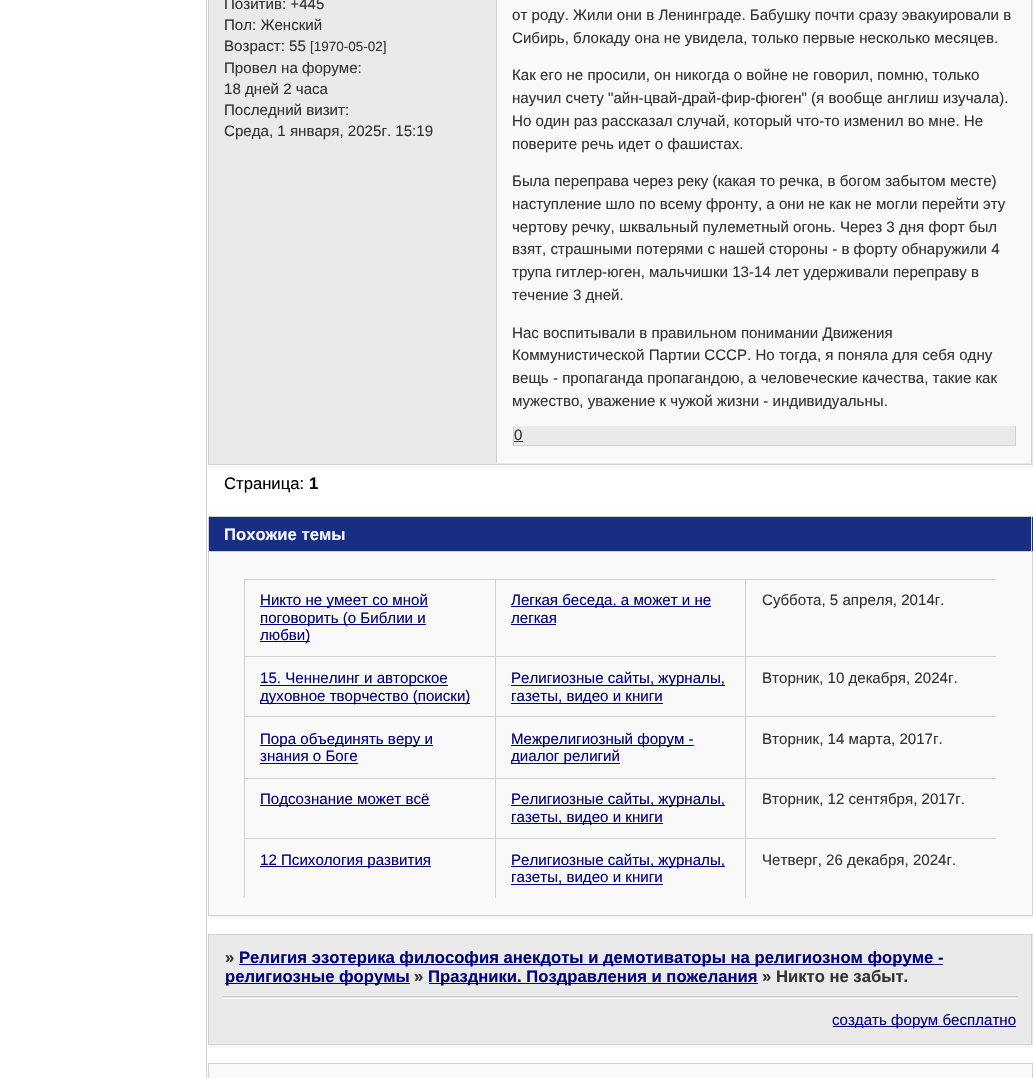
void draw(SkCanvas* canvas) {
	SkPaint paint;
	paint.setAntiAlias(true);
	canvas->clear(0xffffffff);
	paint.setStroke(true);
	paint.setStrokeWidth(1);
	paint.setColor(0xffd0d0d0);
	canvas->drawRect(SkRect::MakeXYWH(206.5, -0.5, 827, 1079), paint);
	paint.setStroke(false);
	paint.setColor(0xfff8f8f8);
	canvas->drawRect(SkRect::MakeXYWH(208, 465, 825, 3), paint);
	paint.setColor(0xffeaeaea);
	canvas->drawRect(SkRect::MakeXYWH(209, 0, 824, 464), paint);
	paint.setColor(0xffd0d0d0);
	canvas->drawRect(SkRect::MakeXYWH(1031, 0, 1, 465), paint);
	canvas->drawRect(SkRect::MakeXYWH(208, 464, 825, 1), paint);
	canvas->drawRect(SkRect::MakeXYWH(208, 0, 1, 465), paint);
	SkFont f1(fontMgr->matchFamilyStyle("Liberation Sans", SkFontStyle::Normal()), 15.1);
	f1.setSubpixel(true);
	paint.setColor(0xff333333);
	canvas->drawString("Позитив: +445", 224, 9, f1, paint);
	canvas->drawString("Пол: Женский", 224, 30, f1, paint);
	canvas->drawString("Возраст: 55", 224, 51, f1, paint);
	SkFont f2(fontMgr->matchFamilyStyle("Liberation Sans", SkFontStyle::Normal()), 13.5);
	f2.setSubpixel(true);
	canvas->drawString("[1970-05-02]", 310, 51, f2, paint);
	canvas->drawString("Провел на форуме:", 224, 73, f1, paint);
	canvas->drawString("18 дней 2 часа", 224, 94, f1, paint);
	canvas->drawString("Последний визит:", 224, 115, f1, paint);
	canvas->drawString("Среда, 1 января, 2025г. 15:19", 224, 136, f1, paint);
	paint.setColor(0xfff9f9f9);
	canvas->drawRect(SkRect::MakeXYWH(497, 0, 534, 463), paint);
	paint.setColor(0xffd0d0d0);
	canvas->drawRect(SkRect::MakeXYWH(496, 0, 1, 463), paint);
	paint.setColor(0xff333333);
	canvas->drawString("от роду. Жили они в Ленинграде. Бабушку почти сразу эвакуировали в", 512, 20, f1, paint);
	canvas->drawString("Сибирь, блокаду она не увидела, только первые несколько месяцев.", 512, 43, f1, paint);
	canvas->drawString("Как его не просили, он никогда о войне не говорил, помню, только", 512, 80, f1, paint);
	canvas->drawString("научил счету \"айн-цвай-драй-фир-фюген\" (я вообще англиш изучала).", 512, 103, f1, paint);
	canvas->drawString("Но один раз рассказал случай, который что-то изменил во мне. Не", 512, 126, f1, paint);
	canvas->drawString("поверите речь идет о фашистах.", 512, 149, f1, paint);
	canvas->drawString("Была переправа через реку (какая то речка, в богом забытом месте)", 512, 186, f1, paint);
	canvas->drawString("наступление шло по всему фронту, а они не как не могли перейти эту", 512, 209, f1, paint);
	canvas->drawString("чертову речку, шквальный пулеметный огонь. Через 3 дня форт был", 512, 232, f1, paint);
	canvas->drawString("взят, страшными потерями с нашей стороны - в форту обнаружили 4", 512, 254, f1, paint);
	canvas->drawString("трупа гитлер-юген, мальчишки 13-14 лет удерживали переправу в", 512, 277, f1, paint);
	canvas->drawString("течение 3 дней.", 512, 300, f1, paint);
	canvas->drawString("Нас воспитывали в правильном понимании Движения", 512, 338, f1, paint);
	canvas->drawString("Коммунистической Партии СССР. Но тогда, я поняла для себя одну", 512, 360, f1, paint);
	canvas->drawString("вещь - пропаганда пропагандою, а человеческие качества, такие как", 512, 383, f1, paint);
	canvas->drawString("мужество, уважение к чужой жизни - индивидуальны.", 512, 406, f1, paint);
	paint.setColor(0xffeaeaea);
	canvas->drawRect(SkRect::MakeXYWH(514, 426, 501, 19), paint);
	paint.setColor(0xffd0d0d0);
	canvas->drawRect(SkRect::MakeXYWH(1015, 426, 1, 20), paint);
	canvas->drawRect(SkRect::MakeXYWH(513, 445, 503, 1), paint);
	canvas->drawRect(SkRect::MakeXYWH(513, 426, 1, 20), paint);
	paint.setColor(0xff333333);
	canvas->drawString("0", 514, 440, f1, paint);
	canvas->drawRect(SkRect::MakeXYWH(514, 441, 9, 1), paint);
	SkFont f3(fontMgr->matchFamilyStyle("Liberation Sans", SkFontStyle::Normal()), 16.65);
	f3.setSubpixel(true);
	paint.setColor(0xff000000);
	canvas->drawString("Страница:", 224, 489, f3, paint);
	SkFont f4(fontMgr->matchFamilyStyle("Liberation Sans", SkFontStyle::Bold()), 16.65);
	f4.setSubpixel(true);
	canvas->drawString("1", 309, 489, f4, paint);
	paint.setColor(0xfff8f8f8);
	canvas->drawRect(SkRect::MakeXYWH(208, 916, 825, 3), paint);
	paint.setColor(0xff182e85);
	canvas->drawRect(SkRect::MakeXYWH(209, 517, 824, 34), paint);
	paint.setColor(0xffd0d0d0);
	canvas->drawRect(SkRect::MakeXYWH(208, 516, 825, 1), paint);
	canvas->drawRect(SkRect::MakeXYWH(1031, 516, 1, 35), paint);
	canvas->drawRect(SkRect::MakeXYWH(208, 516, 1, 35), paint);
	paint.setColor(0xfff6f6f6);
	canvas->drawString("Похожие темы", 224, 540, f4, paint);
	paint.setColor(0xfff9f9f9);
	canvas->drawRect(SkRect::MakeXYWH(208.5, 551.5, 824, 364), paint);
	paint.setStroke(true);
	paint.setColor(0xffd0d0d0);
	canvas->drawRect(SkRect::MakeXYWH(208.5, 551.5, 824, 364), paint);
	paint.setStroke(false);
	canvas->drawRect(SkRect::MakeXYWH(244, 579, 752, 1), paint);
	canvas->drawRect(SkRect::MakeXYWH(244, 579, 1, 77), paint);
	paint.setColor(0xff000080);
	canvas->drawRect(SkRect::MakeXYWH(260, 606, 168, 1), paint);
	canvas->drawString("Никто не умеет со мной", 260, 605, f1, paint);
	canvas->drawRect(SkRect::MakeXYWH(260, 624, 166, 1), paint);
	canvas->drawString("поговорить (о Библии и", 260, 623, f1, paint);
	canvas->drawRect(SkRect::MakeXYWH(260, 641, 50, 1), paint);
	canvas->drawString("любви)", 260, 640, f1, paint);
	paint.setColor(0xffd0d0d0);
	canvas->drawRect(SkRect::MakeXYWH(495, 579, 1, 77), paint);
	paint.setColor(0xff000080);
	canvas->drawRect(SkRect::MakeXYWH(511, 606, 200, 1), paint);
	canvas->drawString("Легкая беседа, а может и не", 511, 605, f1, paint);
	canvas->drawString("легкая", 511, 623, f1, paint);
	canvas->drawRect(SkRect::MakeXYWH(511, 624, 45, 1), paint);
	paint.setColor(0xffd0d0d0);
	canvas->drawRect(SkRect::MakeXYWH(745, 579, 1, 77), paint);
	paint.setColor(0xff333333);
	canvas->drawString("Суббота, 5 апреля, 2014г.", 762, 605, f1, paint);
	paint.setColor(0xffd0d0d0);
	canvas->drawRect(SkRect::MakeXYWH(244, 656, 752, 1), paint);
	canvas->drawRect(SkRect::MakeXYWH(244, 656, 1, 60), paint);
	paint.setColor(0xff000080);
	canvas->drawRect(SkRect::MakeXYWH(260, 685, 188, 1), paint);
	canvas->drawString("15. Ченнелинг и авторское", 260, 683, f1, paint);
	canvas->drawRect(SkRect::MakeXYWH(260, 703, 210, 1), paint);
	canvas->drawString("духовное творчество (поиски)", 260, 701, f1, paint);
	paint.setColor(0xffd0d0d0);
	canvas->drawRect(SkRect::MakeXYWH(495, 656, 1, 60), paint);
	paint.setColor(0xff000080);
	canvas->drawRect(SkRect::MakeXYWH(511, 685, 214, 1), paint);
	canvas->drawString("Религиозные сайты, журналы,", 511, 683, f1, paint);
	canvas->drawRect(SkRect::MakeXYWH(511, 703, 152, 1), paint);
	canvas->drawString("газеты, видео и книги", 511, 701, f1, paint);
	paint.setColor(0xffd0d0d0);
	canvas->drawRect(SkRect::MakeXYWH(745, 656, 1, 60), paint);
	paint.setColor(0xff333333);
	canvas->drawString("Вторник, 10 декабря, 2024г.", 762, 683, f1, paint);
	paint.setColor(0xffd0d0d0);
	canvas->drawRect(SkRect::MakeXYWH(244, 716, 752, 1), paint);
	canvas->drawRect(SkRect::MakeXYWH(244, 716, 1, 62), paint);
	paint.setColor(0xff000080);
	canvas->drawRect(SkRect::MakeXYWH(260, 745, 173, 1), paint);
	canvas->drawString("Пора объединять веру и", 260, 744, f1, paint);
	canvas->drawString("знания о Боге", 260, 761, f1, paint);
	canvas->drawRect(SkRect::MakeXYWH(260, 763, 98, 1), paint);
	paint.setColor(0xffd0d0d0);
	canvas->drawRect(SkRect::MakeXYWH(495, 716, 1, 62), paint);
	paint.setColor(0xff000080);
	canvas->drawRect(SkRect::MakeXYWH(511, 745, 183, 1), paint);
	canvas->drawString("Межрелигиозный форум -", 511, 744, f1, paint);
	canvas->drawRect(SkRect::MakeXYWH(511, 763, 109, 1), paint);
	canvas->drawString("диалог религий", 511, 761, f1, paint);
	paint.setColor(0xffd0d0d0);
	canvas->drawRect(SkRect::MakeXYWH(745, 716, 1, 62), paint);
	paint.setColor(0xff333333);
	canvas->drawString("Вторник, 14 марта, 2017г.", 762, 744, f1, paint);
	paint.setColor(0xffd0d0d0);
	canvas->drawRect(SkRect::MakeXYWH(244, 778, 752, 1), paint);
	canvas->drawRect(SkRect::MakeXYWH(244, 778, 1, 60), paint);
	paint.setColor(0xff000080);
	canvas->drawRect(SkRect::MakeXYWH(260, 805, 170, 1), paint);
	canvas->drawString("Подсознание может всё", 260, 804, f1, paint);
	paint.setColor(0xffd0d0d0);
	canvas->drawRect(SkRect::MakeXYWH(495, 778, 1, 60), paint);
	paint.setColor(0xff000080);
	canvas->drawRect(SkRect::MakeXYWH(511, 805, 214, 1), paint);
	canvas->drawString("Религиозные сайты, журналы,", 511, 804, f1, paint);
	canvas->drawRect(SkRect::MakeXYWH(511, 823, 152, 1), paint);
	canvas->drawString("газеты, видео и книги", 511, 822, f1, paint);
	paint.setColor(0xffd0d0d0);
	canvas->drawRect(SkRect::MakeXYWH(745, 778, 1, 60), paint);
	paint.setColor(0xff333333);
	canvas->drawString("Вторник, 12 сентября, 2017г.", 762, 804, f1, paint);
	paint.setColor(0xffd0d0d0);
	canvas->drawRect(SkRect::MakeXYWH(244, 838, 752, 1), paint);
	canvas->drawRect(SkRect::MakeXYWH(244, 838, 1, 60), paint);
	paint.setColor(0xff000080);
	canvas->drawRect(SkRect::MakeXYWH(260, 866, 171, 1), paint);
	canvas->drawString("12 Психология развития", 260, 865, f1, paint);
	paint.setColor(0xffd0d0d0);
	canvas->drawRect(SkRect::MakeXYWH(495, 838, 1, 60), paint);
	paint.setColor(0xff000080);
	canvas->drawRect(SkRect::MakeXYWH(511, 866, 214, 1), paint);
	canvas->drawString("Религиозные сайты, журналы,", 511, 865, f1, paint);
	canvas->drawRect(SkRect::MakeXYWH(511, 884, 152, 1), paint);
	canvas->drawString("газеты, видео и книги", 511, 882, f1, paint);
	paint.setColor(0xffd0d0d0);
	canvas->drawRect(SkRect::MakeXYWH(745, 838, 1, 60), paint);
	paint.setColor(0xff333333);
	canvas->drawString("Четверг, 26 декабря, 2024г.", 762, 865, f1, paint);
	paint.setColor(0xffeaeaea);
	canvas->drawRect(SkRect::MakeXYWH(209, 999, 824, 45), paint);
	paint.setColor(0xffd0d0d0);
	canvas->drawRect(SkRect::MakeXYWH(1031, 996, 1, 49), paint);
	paint.setColor(0xffeaeaea);
	canvas->drawRect(SkRect::MakeXYWH(209, 935, 824, 64), paint);
	paint.setColor(0xffd0d0d0);
	canvas->drawRect(SkRect::MakeXYWH(208, 934, 825, 1), paint);
	canvas->drawRect(SkRect::MakeXYWH(1031, 934, 1, 65), paint);
	canvas->drawRect(SkRect::MakeXYWH(208, 1044, 825, 1), paint);
	canvas->drawRect(SkRect::MakeXYWH(208, 996, 1, 49), paint);
	canvas->drawRect(SkRect::MakeXYWH(208, 934, 1, 65), paint);
	paint.setColor(0xff333333);
	canvas->drawString("»", 225, 963, f4, paint);
	paint.setColor(0xff000080);
	canvas->drawRect(SkRect::MakeXYWH(239, 964, 704, 1), paint);
	canvas->drawString("Религия эзотерика философия анекдоты и демотиваторы на религиозном форуме -", 239, 963, f4, paint);
	canvas->drawRect(SkRect::MakeXYWH(225, 983, 185, 1), paint);
	canvas->drawString("религиозные форумы", 225, 982, f4, paint);
	paint.setColor(0xff333333);
	canvas->drawString("»", 414, 982, f4, paint);
	paint.setColor(0xff000080);
	canvas->drawRect(SkRect::MakeXYWH(429, 983, 329, 1), paint);
	canvas->drawString("Праздники. Поздравления и пожелания", 428, 982, f4, paint);
	paint.setColor(0xff333333);
	canvas->drawString("» Никто не забыт.", 762, 982, f4, paint);
	paint.setColor(0xffcccccc);
	canvas->drawRect(SkRect::MakeXYWH(223, 996, 795, 1), paint);
	paint.setColor(0xffffffff);
	canvas->drawRect(SkRect::MakeXYWH(223, 998, 795, 1), paint);
	paint.setColor(0xfff8f8f8);
	canvas->drawRect(SkRect::MakeXYWH(208, 1045, 825, 3), paint);
	paint.setColor(0xff000080);
	canvas->drawRect(SkRect::MakeXYWH(833, 1026, 183, 1), paint);
	canvas->drawString("создать форум бесплатно", 832, 1025, f1, paint);
	paint.setColor(0xfff9f9f9);
	canvas->drawRect(SkRect::MakeXYWH(208.5, 1063.5, 824, 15), paint);
	paint.setStroke(true);
	paint.setColor(0xffd0d0d0);
	canvas->drawRect(SkRect::MakeXYWH(208.5, 1063.5, 824, 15), paint);
}
